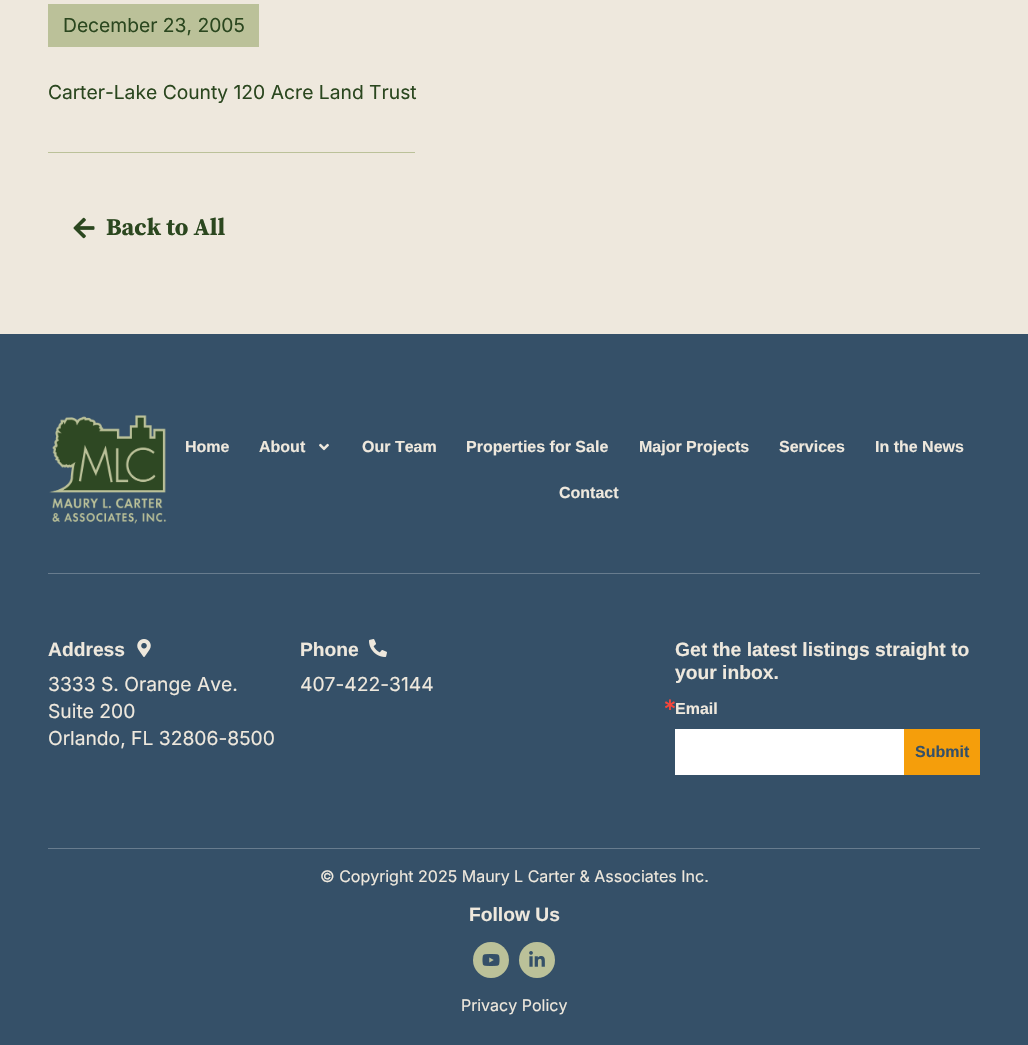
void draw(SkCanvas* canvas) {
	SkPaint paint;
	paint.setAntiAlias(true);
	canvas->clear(0xffeee8dd);
	paint.setColor(0xffbbc199);
	canvas->drawRect(SkRect::MakeXYWH(48, 4, 211, 43), paint);
	SkFont f1(fontMgr->matchFamilyStyle("Inter", SkFontStyle::Normal()), 19.25);
	f1.setSubpixel(true);
	paint.setColor(0xff2b471f);
	canvas->drawString("December 23, 2005", 63, 32, f1, paint);
	paint.setColor(0xffbbc199);
	canvas->drawRect(SkRect::MakeXYWH(48, 152, 367, 1), paint);
	paint.setColor(0xff2b471f);
	canvas->drawString("Carter-Lake County 120 Acre Land Trust", 48, 99, f1, paint);
	canvas->drawImageRect(SkImages::DeferredFromEncodedData(SkData::MakeFromFileName("img1.png")), SkRect::MakeXYWH(73, 217, 22, 22), SkSamplingOptions());
	SkFont f2(fontMgr->matchFamilyStyle("Source Serif Pro", SkFontStyle::Bold()), 24);
	f2.setSubpixel(true);
	canvas->drawString("Back to All", 106, 235, f2, paint);
	paint.setColor(0xff355068);
	canvas->drawRect(SkRect::MakeXYWH(0, 334, 1028, 711), paint);
	paint.setColor(0xff687c8e);
	canvas->drawRect(SkRect::MakeXYWH(48, 573, 932, 1), paint);
	canvas->drawImageRect(SkImages::DeferredFromEncodedData(SkData::MakeFromFileName("img2.png")), SkRect::MakeXYWH(49, 415, 118, 109), SkSamplingOptions());
	SkFont f3(fontMgr->matchFamilyStyle("Liberation Sans", SkFontStyle::Bold()), 16);
	f3.setSubpixel(true);
	paint.setColor(0xffeee8dd);
	canvas->drawString("Home", 185, 452, f3, paint);
	canvas->drawString("About", 259, 452, f3, paint);
	canvas->drawImageRect(SkImages::DeferredFromEncodedData(SkData::MakeFromFileName("img3.png")), SkRect::MakeXYWH(319, 443, 10, 8), SkSamplingOptions());
	canvas->drawString("Our Team", 362, 452, f3, paint);
	canvas->drawString("Properties for Sale", 466, 452, f3, paint);
	canvas->drawString("Major Projects", 639, 452, f3, paint);
	canvas->drawString("Services", 779, 452, f3, paint);
	canvas->drawString("In the News", 875, 452, f3, paint);
	canvas->drawString("Contact", 559, 498, f3, paint);
	paint.setColor(0xff687c8e);
	canvas->drawRect(SkRect::MakeXYWH(48, 848, 932, 1), paint);
	SkFont f4(fontMgr->matchFamilyStyle("Liberation Sans", SkFontStyle::Bold()), 19.25);
	f4.setSubpixel(true);
	paint.setColor(0xffeee8dd);
	canvas->drawString("Address", 48, 656, f4, paint);
	canvas->drawImageRect(SkImages::DeferredFromEncodedData(SkData::MakeFromFileName("img4.png")), SkRect::MakeXYWH(137, 639, 14, 18), SkSamplingOptions());
	canvas->drawString("3333 S. Orange Ave.", 48, 691, f1, paint);
	canvas->drawString("Suite 200", 48, 718, f1, paint);
	canvas->drawString("Orlando, FL 32806-8500", 48, 745, f1, paint);
	canvas->drawString("Phone", 300, 656, f4, paint);
	canvas->drawImageRect(SkImages::DeferredFromEncodedData(SkData::MakeFromFileName("img5.png")), SkRect::MakeXYWH(369, 639, 18, 18), SkSamplingOptions());
	canvas->drawString("407-422-3144", 300, 691, f1, paint);
	canvas->drawString("Get the latest listings straight to", 675, 656, f4, paint);
	canvas->drawString("your inbox.", 675, 679, f4, paint);
	SkFont f5(fontMgr->matchFamilyStyle("DejaVu Sans", SkFontStyle::Bold()), 16);
	f5.setSubpixel(true);
	paint.setColor(0xfff5463b);
	canvas->drawString("∗", 663, 710, f5, paint);
	paint.setColor(0xffeee8dd);
	canvas->drawString("Email", 675, 714, f3, paint);
	paint.setColor(0xffffffff);
	canvas->drawRect(SkRect::MakeXYWH(675, 729, 229, 46), paint);
	paint.setColor(0xfff59e0b);
	canvas->drawRect(SkRect::MakeXYWH(904, 729, 76, 46), paint);
	paint.setColor(0xff355068);
	canvas->drawString("Submit", 915, 757, f3, paint);
	SkFont f6(fontMgr->matchFamilyStyle("Inter", SkFontStyle::Normal()), 16);
	f6.setSubpixel(true);
	paint.setColor(0xffeee8dd);
	canvas->drawString("© Copyright 2025 Maury L Carter & Associates Inc.", 320, 882, f6, paint);
	canvas->drawString("Follow Us", 469, 921, f4, paint);
	paint.setColor(0xffbbc199);
	canvas->drawCircle(491, 960, 18, paint);
	canvas->drawImageRect(SkImages::DeferredFromEncodedData(SkData::MakeFromFileName("img6.png")), SkRect::MakeXYWH(482, 954, 18, 12), SkSamplingOptions());
	canvas->drawCircle(537, 960, 18, paint);
	canvas->drawImageRect(SkImages::DeferredFromEncodedData(SkData::MakeFromFileName("img7.png")), SkRect::MakeXYWH(529, 951, 16, 16), SkSamplingOptions());
	paint.setColor(0xffeee8dd);
	canvas->drawString("Privacy Policy", 461, 1011, f6, paint);
}
